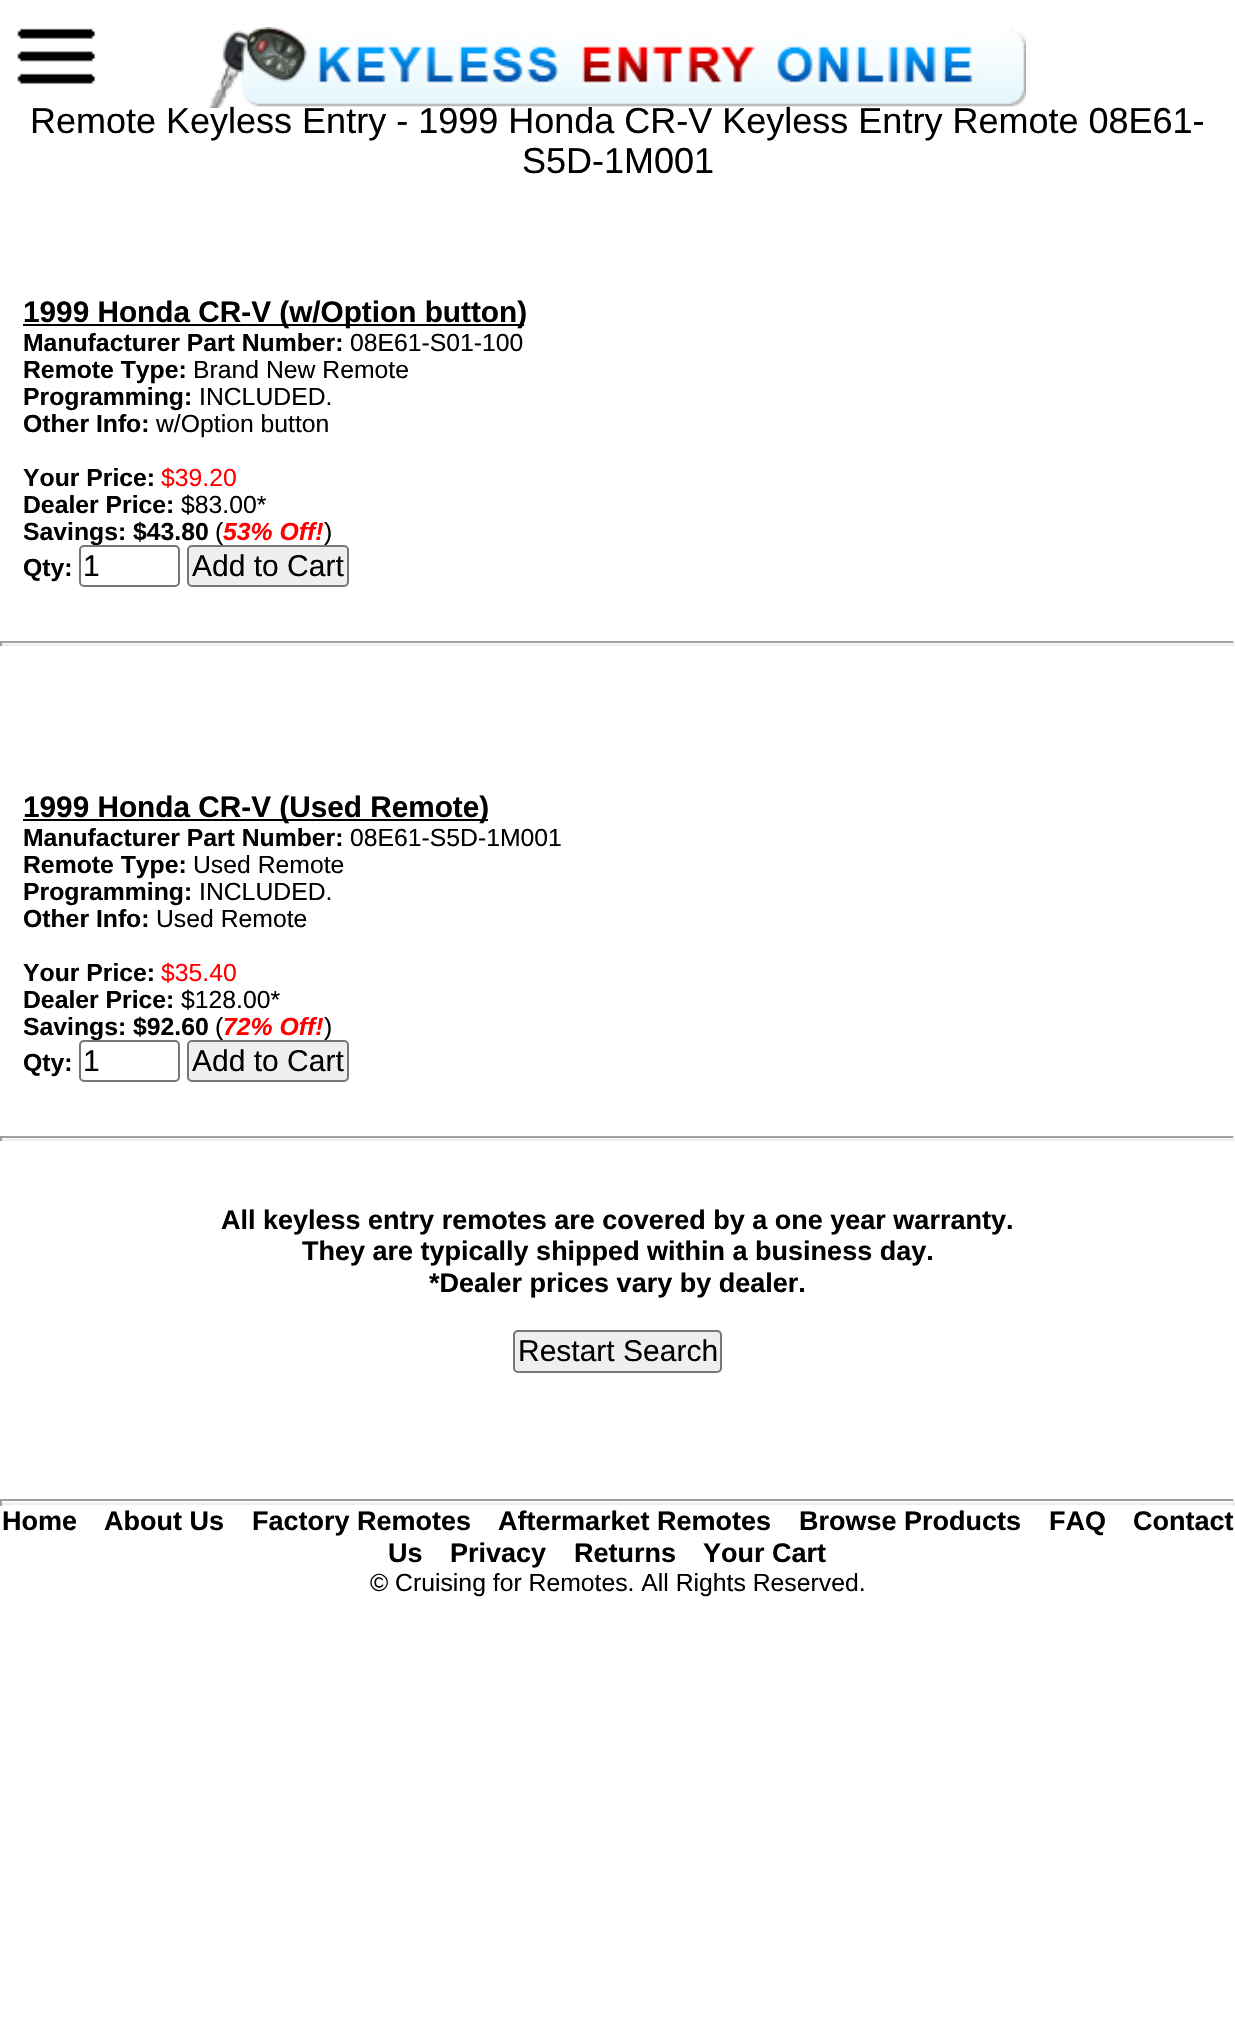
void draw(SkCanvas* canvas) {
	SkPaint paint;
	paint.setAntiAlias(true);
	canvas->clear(0xffffffff);
	canvas->drawImageRect(SkImages::DeferredFromEncodedData(SkData::MakeFromFileName("img1.png")), SkRect::MakeXYWH(17, 28, 79, 56), SkSamplingOptions());
	canvas->drawImageRect(SkImages::DeferredFromEncodedData(SkData::MakeFromFileName("img2.png")), SkRect::MakeXYWH(209, 27, 817, 81), SkSamplingOptions());
	SkFont f1(fontMgr->matchFamilyStyle("Liberation Sans", SkFontStyle::Normal()), 36);
	f1.setSubpixel(true);
	paint.setColor(0xff000000);
	canvas->drawString("Remote Keyless Entry - 1999 Honda CR-V Keyless Entry Remote 08E61-", 30, 133, f1, paint);
	canvas->drawString("S5D-1M001", 522, 173, f1, paint);
	canvas->drawRect(SkRect::MakeXYWH(23, 324, 501, 2), paint);
	SkFont f2(fontMgr->matchFamilyStyle("Liberation Sans", SkFontStyle::Bold()), 29.75);
	f2.setSubpixel(true);
	canvas->drawString("1999 Honda CR-V (w/Option button)", 23, 322, f2, paint);
	SkFont f3(fontMgr->matchFamilyStyle("Liberation Sans", SkFontStyle::Bold()), 24.75);
	f3.setSubpixel(true);
	canvas->drawString("Manufacturer Part Number:", 23, 351, f3, paint);
	SkFont f4(fontMgr->matchFamilyStyle("Liberation Sans", SkFontStyle::Normal()), 24.75);
	f4.setSubpixel(true);
	canvas->drawString("08E61-S01-100", 350, 351, f4, paint);
	canvas->drawString("Remote Type:", 23, 378, f3, paint);
	canvas->drawString("Brand New Remote", 193, 378, f4, paint);
	canvas->drawString("Programming:", 23, 405, f3, paint);
	canvas->drawString("INCLUDED.", 199, 405, f4, paint);
	canvas->drawString("Other Info:", 23, 432, f3, paint);
	canvas->drawString("w/Option button", 156, 432, f4, paint);
	canvas->drawString("Your Price:", 23, 486, f3, paint);
	paint.setColor(0xffff0000);
	canvas->drawString("$39.20", 161, 486, f4, paint);
	paint.setColor(0xff000000);
	canvas->drawString("Dealer Price:", 23, 513, f3, paint);
	canvas->drawString("$83.00*", 181, 513, f4, paint);
	canvas->drawString("Savings: $43.80", 23, 540, f3, paint);
	canvas->drawString("(", 215, 540, f4, paint);
	SkFont f5(fontMgr->matchFamilyStyle("Liberation Sans", SkFontStyle::BoldItalic()), 24.75);
	f5.setSubpixel(true);
	paint.setColor(0xffff0000);
	canvas->drawString("53% Off!", 223, 540, f5, paint);
	paint.setColor(0xff000000);
	canvas->drawString(")", 324, 540, f4, paint);
	canvas->drawString("Qty:", 23, 576, f3, paint);
	paint.setColor(0xffffffff);
	canvas->drawRoundRect(SkRect::MakeXYWH(80, 546, 99, 40), 4, 4, paint);
	paint.setStroke(true);
	paint.setStrokeWidth(2);
	paint.setColor(0xff767676);
	canvas->drawRoundRect(SkRect::MakeXYWH(80, 546, 99, 40), 4, 4, paint);
	SkFont f6(fontMgr->matchFamilyStyle("Liberation Sans", SkFontStyle::Normal()), 30);
	f6.setSubpixel(true);
	paint.setStroke(false);
	paint.setColor(0xff000000);
	canvas->drawString("1", 83, 576, f6, paint);
	paint.setColor(0xffefefef);
	canvas->drawRoundRect(SkRect::MakeXYWH(188, 546, 160, 40), 4, 4, paint);
	paint.setStroke(true);
	paint.setColor(0xff767676);
	canvas->drawRoundRect(SkRect::MakeXYWH(188, 546, 160, 40), 4, 4, paint);
	paint.setStroke(false);
	paint.setColor(0xff000000);
	canvas->drawString("Add to Cart", 192, 576, f6, paint);
	paint.setColor(0xff9f9f9f);
	canvas->drawRect(SkRect::MakeXYWH(0, 641, 1235, 2), paint);
	paint.setColor(0xffeeeeee);
	canvas->drawRect(SkRect::MakeXYWH(1233, 641, 2, 5), paint);
	canvas->drawRect(SkRect::MakeXYWH(0, 644, 1235, 2), paint);
	paint.setColor(0xff9f9f9f);
	canvas->drawRect(SkRect::MakeXYWH(0, 641, 2, 5), paint);
	paint.setColor(0xff000000);
	canvas->drawRect(SkRect::MakeXYWH(23, 819, 465, 2), paint);
	canvas->drawString("1999 Honda CR-V (Used Remote)", 23, 817, f2, paint);
	canvas->drawString("Manufacturer Part Number:", 23, 846, f3, paint);
	canvas->drawString("08E61-S5D-1M001", 350, 846, f4, paint);
	canvas->drawString("Remote Type:", 23, 873, f3, paint);
	canvas->drawString("Used Remote", 193, 873, f4, paint);
	canvas->drawString("Programming:", 23, 900, f3, paint);
	canvas->drawString("INCLUDED.", 199, 900, f4, paint);
	canvas->drawString("Other Info:", 23, 927, f3, paint);
	canvas->drawString("Used Remote", 156, 927, f4, paint);
	canvas->drawString("Your Price:", 23, 981, f3, paint);
	paint.setColor(0xffff0000);
	canvas->drawString("$35.40", 161, 981, f4, paint);
	paint.setColor(0xff000000);
	canvas->drawString("Dealer Price:", 23, 1008, f3, paint);
	canvas->drawString("$128.00*", 181, 1008, f4, paint);
	canvas->drawString("Savings: $92.60", 23, 1035, f3, paint);
	canvas->drawString("(", 215, 1035, f4, paint);
	paint.setColor(0xffff0000);
	canvas->drawString("72% Off!", 223, 1035, f5, paint);
	paint.setColor(0xff000000);
	canvas->drawString(")", 324, 1035, f4, paint);
	canvas->drawString("Qty:", 23, 1071, f3, paint);
	paint.setColor(0xffffffff);
	canvas->drawRoundRect(SkRect::MakeXYWH(80, 1041, 99, 40), 4, 4, paint);
	paint.setStroke(true);
	paint.setColor(0xff767676);
	canvas->drawRoundRect(SkRect::MakeXYWH(80, 1041, 99, 40), 4, 4, paint);
	paint.setStroke(false);
	paint.setColor(0xff000000);
	canvas->drawString("1", 83, 1071, f6, paint);
	paint.setColor(0xffefefef);
	canvas->drawRoundRect(SkRect::MakeXYWH(188, 1041, 160, 40), 4, 4, paint);
	paint.setStroke(true);
	paint.setColor(0xff767676);
	canvas->drawRoundRect(SkRect::MakeXYWH(188, 1041, 160, 40), 4, 4, paint);
	paint.setStroke(false);
	paint.setColor(0xff000000);
	canvas->drawString("Add to Cart", 192, 1071, f6, paint);
	paint.setColor(0xff9f9f9f);
	canvas->drawRect(SkRect::MakeXYWH(0, 1136, 1235, 2), paint);
	paint.setColor(0xffeeeeee);
	canvas->drawRect(SkRect::MakeXYWH(1233, 1136, 2, 5), paint);
	canvas->drawRect(SkRect::MakeXYWH(0, 1139, 1235, 2), paint);
	paint.setColor(0xff9f9f9f);
	canvas->drawRect(SkRect::MakeXYWH(0, 1136, 2, 5), paint);
	SkFont f7(fontMgr->matchFamilyStyle("Liberation Sans", SkFontStyle::Bold()), 27);
	f7.setSubpixel(true);
	paint.setColor(0xff000000);
	canvas->drawString("All keyless entry remotes are covered by a one year warranty.", 221, 1229, f7, paint);
	canvas->drawString("They are typically shipped within a business day.", 302, 1260, f7, paint);
	canvas->drawString("*Dealer prices vary by dealer.", 429, 1292, f7, paint);
	paint.setColor(0xffefefef);
	canvas->drawRoundRect(SkRect::MakeXYWH(514, 1331, 207, 41), 4, 4, paint);
	paint.setStroke(true);
	paint.setColor(0xff767676);
	canvas->drawRoundRect(SkRect::MakeXYWH(514, 1331, 207, 41), 4, 4, paint);
	paint.setStroke(false);
	paint.setColor(0xff000000);
	canvas->drawString("Restart Search", 518, 1361, f6, paint);
	paint.setColor(0xff9f9f9f);
	canvas->drawRect(SkRect::MakeXYWH(0, 1499, 1235, 2), paint);
	paint.setColor(0xffeeeeee);
	canvas->drawRect(SkRect::MakeXYWH(1233, 1499, 2, 7), paint);
	canvas->drawRect(SkRect::MakeXYWH(0, 1503, 1235, 2), paint);
	paint.setColor(0xff9f9f9f);
	canvas->drawRect(SkRect::MakeXYWH(0, 1499, 2, 7), paint);
	paint.setColor(0xff000000);
	canvas->drawString("Home", 2, 1530, f7, paint);
	canvas->drawString("About Us", 104, 1530, f7, paint);
	canvas->drawString("Factory Remotes", 252, 1530, f7, paint);
	canvas->drawString("Aftermarket Remotes", 498, 1530, f7, paint);
	canvas->drawString("Browse Products", 799, 1530, f7, paint);
	canvas->drawString("FAQ", 1049, 1530, f7, paint);
	canvas->drawString("Contact", 1133, 1530, f7, paint);
	canvas->drawString("Us", 388, 1562, f7, paint);
	canvas->drawString("Privacy", 450, 1562, f7, paint);
	canvas->drawString("Returns", 574, 1562, f7, paint);
	canvas->drawString("Your Cart", 703, 1562, f7, paint);
	canvas->drawString("© Cruising for Remotes. All Rights Reserved.", 370, 1591, f4, paint);
}
